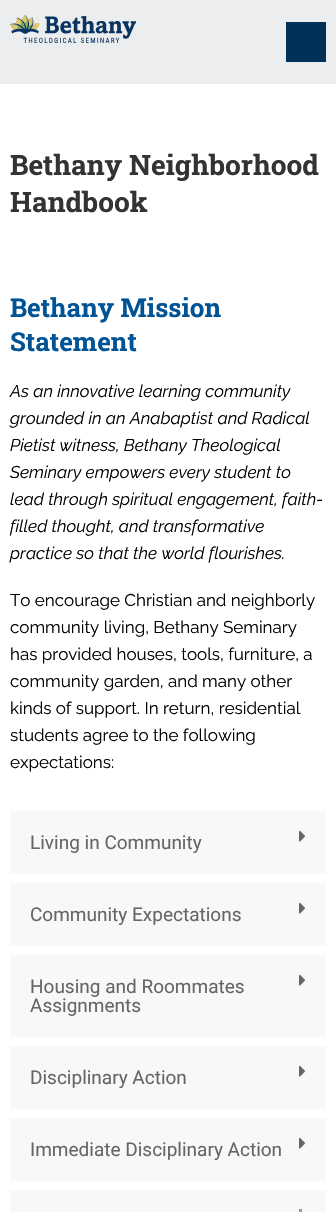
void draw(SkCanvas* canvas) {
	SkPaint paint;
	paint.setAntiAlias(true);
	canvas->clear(0xffffffff);
	paint.setColor(0xffebedee);
	canvas->drawRect(SkRect::MakeXYWH(0, 0, 336, 84), paint);
	canvas->drawImageRect(SkImages::DeferredFromEncodedData(SkData::MakeFromFileName("img1.png")), SkRect::MakeXYWH(10, 15, 126, 28), SkSamplingOptions());
	paint.setColor(0xff003259);
	canvas->drawRect(SkRect::MakeXYWH(286, 22, 40, 40), paint);
	SkFont f1(fontMgr->matchFamilyStyle("Roboto Slab", SkFontStyle::Bold()), 28);
	f1.setSubpixel(true);
	paint.setColor(0xff333333);
	canvas->drawString("Bethany Neighborhood", 10, 175, f1, paint);
	canvas->drawString("Handbook", 10, 212, f1, paint);
	SkFont f2(fontMgr->matchFamilyStyle("Roboto Slab", SkFontStyle::Bold()), 26);
	f2.setSubpixel(true);
	paint.setColor(0xff005394);
	canvas->drawString("Bethany Mission", 10, 317, f2, paint);
	canvas->drawString("Statement", 10, 351, f2, paint);
	SkFont f3(fontMgr->matchFamilyStyle("Raleway", SkFontStyle::Italic()), 17);
	f3.setSubpixel(true);
	paint.setColor(0xff000000);
	canvas->drawString("As an innovative learning community", 10, 397, f3, paint);
	canvas->drawString("grounded in an Anabaptist and Radical", 10, 424, f3, paint);
	canvas->drawString("Pietist witness, Bethany Theological", 10, 451, f3, paint);
	canvas->drawString("Seminary empowers every student to", 10, 478, f3, paint);
	canvas->drawString("lead through spiritual engagement, faith-", 10, 505, f3, paint);
	canvas->drawString("filled thought, and transformative", 10, 532, f3, paint);
	canvas->drawString("practice so that the world flourishes.", 10, 559, f3, paint);
	SkFont f4(fontMgr->matchFamilyStyle("Raleway", SkFontStyle::Normal()), 17);
	f4.setSubpixel(true);
	canvas->drawString("To encourage Christian and neighborly", 10, 606, f4, paint);
	canvas->drawString("community living, Bethany Seminary", 10, 633, f4, paint);
	canvas->drawString("has provided houses, tools, furniture, a", 10, 660, f4, paint);
	canvas->drawString("community garden, and many other", 10, 687, f4, paint);
	canvas->drawString("kinds of support. In return, residential", 10, 714, f4, paint);
	canvas->drawString("students agree to the following", 10, 741, f4, paint);
	canvas->drawString("expectations:", 10, 768, f4, paint);
	paint.setColor(0xfff8f8f8);
	canvas->drawRect(SkRect::MakeXYWH(10, 811, 316, 63), paint);
	SkFont f5(fontMgr->matchFamilyStyle("Roboto", SkFontStyle::Normal()), 19);
	f5.setSubpixel(true);
	paint.setColor(0xff666666);
	canvas->drawString("Living in Community", 30, 849, f5, paint);
	canvas->drawImageRect(SkImages::DeferredFromEncodedData(SkData::MakeFromFileName("img2.png")), SkRect::MakeXYWH(299, 830, 7, 12), SkSamplingOptions());
	paint.setColor(0xfff8f8f8);
	canvas->drawRect(SkRect::MakeXYWH(10, 883, 316, 63), paint);
	paint.setColor(0xff666666);
	canvas->drawString("Community Expectations", 30, 921, f5, paint);
	canvas->drawImageRect(SkImages::DeferredFromEncodedData(SkData::MakeFromFileName("img2.png")), SkRect::MakeXYWH(299, 902, 7, 12), SkSamplingOptions());
	paint.setColor(0xfff8f8f8);
	canvas->drawRect(SkRect::MakeXYWH(10, 955, 316, 82), paint);
	paint.setColor(0xff666666);
	canvas->drawString("Housing and Roommates", 30, 993, f5, paint);
	canvas->drawImageRect(SkImages::DeferredFromEncodedData(SkData::MakeFromFileName("img2.png")), SkRect::MakeXYWH(299, 974, 7, 12), SkSamplingOptions());
	canvas->drawString("Assignments", 30, 1012, f5, paint);
	paint.setColor(0xfff8f8f8);
	canvas->drawRect(SkRect::MakeXYWH(10, 1046, 316, 63), paint);
	paint.setColor(0xff666666);
	canvas->drawString("Disciplinary Action", 30, 1084, f5, paint);
	canvas->drawImageRect(SkImages::DeferredFromEncodedData(SkData::MakeFromFileName("img2.png")), SkRect::MakeXYWH(299, 1065, 7, 12), SkSamplingOptions());
	paint.setColor(0xfff8f8f8);
	canvas->drawRect(SkRect::MakeXYWH(10, 1118, 316, 63), paint);
	paint.setColor(0xff666666);
	canvas->drawString("Immediate Disciplinary Action", 30, 1156, f5, paint);
	canvas->drawImageRect(SkImages::DeferredFromEncodedData(SkData::MakeFromFileName("img2.png")), SkRect::MakeXYWH(299, 1137, 7, 12), SkSamplingOptions());
	paint.setColor(0xfff8f8f8);
	canvas->drawRect(SkRect::MakeXYWH(10, 1190, 316, 22), paint);
	paint.setColor(0xff999999);
	canvas->drawRect(SkRect::MakeXYWH(299, 1209, 3, 3), paint);
}
